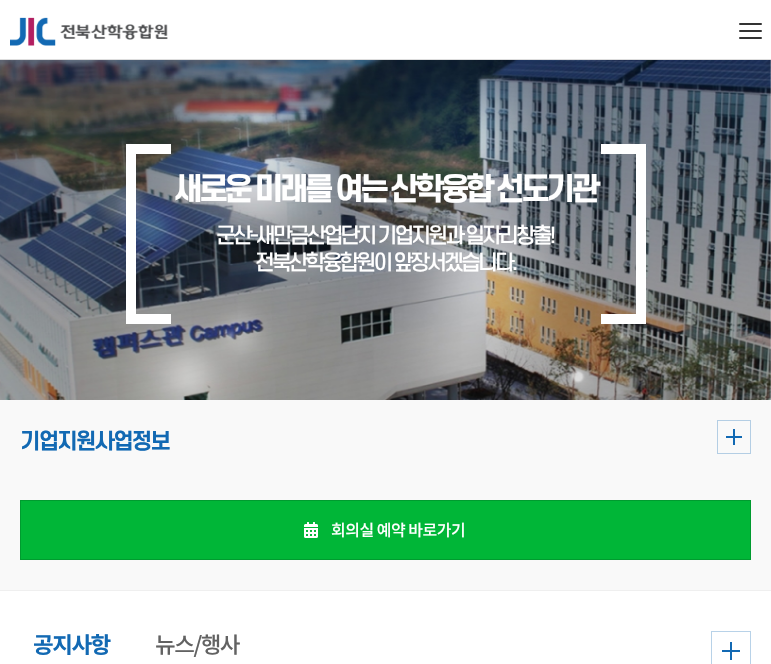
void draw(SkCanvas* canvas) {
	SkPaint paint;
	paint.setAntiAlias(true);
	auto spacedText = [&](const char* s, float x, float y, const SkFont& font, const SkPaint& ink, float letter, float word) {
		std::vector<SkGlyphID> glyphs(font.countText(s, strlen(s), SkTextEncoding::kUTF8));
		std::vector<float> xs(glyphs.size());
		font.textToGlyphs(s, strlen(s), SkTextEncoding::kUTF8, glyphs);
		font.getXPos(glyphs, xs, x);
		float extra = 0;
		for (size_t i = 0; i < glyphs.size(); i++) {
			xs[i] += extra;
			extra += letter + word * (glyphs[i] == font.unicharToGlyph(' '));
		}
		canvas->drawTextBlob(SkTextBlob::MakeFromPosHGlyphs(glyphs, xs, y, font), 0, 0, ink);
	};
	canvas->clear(0xffffffff);
	paint.setColor(0xffdddddd);
	canvas->drawRect(SkRect::MakeXYWH(0, 59, 771, 1), paint);
	canvas->drawImageRect(SkImages::DeferredFromEncodedData(SkData::MakeFromFileName("img1.png")), SkRect::MakeXYWH(10, 17, 158, 29), SkSamplingOptions());
	paint.setColor(0xff333333);
	canvas->drawRoundRect(SkRect::MakeXYWH(739, 23, 23, 2), 1, 1, paint);
	canvas->drawRoundRect(SkRect::MakeXYWH(739, 30, 23, 2), 1, 1, paint);
	canvas->drawRoundRect(SkRect::MakeXYWH(739, 37, 23, 2), 1, 1, paint);
	canvas->drawImageRect(SkImages::DeferredFromEncodedData(SkData::MakeFromFileName("img2.png")), SkRect::MakeXYWH(0, 60, 771, 340), SkSamplingOptions());
	paint.setColor(0xffffffff);
	canvas->drawRect(SkRect::MakeXYWH(136, 144, 35, 10), paint);
	canvas->drawRect(SkRect::MakeXYWH(136, 314, 35, 10), paint);
	canvas->drawRect(SkRect::MakeXYWH(126, 144, 10, 180), paint);
	SkFont f1(fontMgr->matchFamilyStyle("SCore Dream", SkFontStyle(800, SkFontStyle::kNormal_Width, SkFontStyle::kUpright_Slant)), 30.4);
	f1.setSubpixel(true);
	spacedText("새로운 미래를 여는 산학융합 선도기관", 174, 200, f1, paint, -4, 0);
	canvas->drawRect(SkRect::MakeXYWH(601, 144, 35, 10), paint);
	canvas->drawRect(SkRect::MakeXYWH(636, 144, 10, 170), paint);
	canvas->drawRect(SkRect::MakeXYWH(601, 314, 45, 10), paint);
	SkFont f2(fontMgr->matchFamilyStyle("SCore Dream", SkFontStyle(500, SkFontStyle::kNormal_Width, SkFontStyle::kUpright_Slant)), 20.75);
	f2.setSubpixel(true);
	spacedText("군산-새만금산업단지 기업지원과 일자리창출!", 216, 243, f2, paint, -3, 0);
	spacedText("전북산학융합원이 앞장서겠습니다.", 255, 270, f2, paint, -3, 0);
	paint.setColor(0xfff9f9f9);
	canvas->drawRect(SkRect::MakeXYWH(0, 400, 771, 190), paint);
	paint.setColor(0xffefefef);
	canvas->drawRect(SkRect::MakeXYWH(0, 590, 771, 1), paint);
	SkFont f3(fontMgr->matchFamilyStyle("SCore Dream", SkFontStyle::Bold()), 21.5);
	f3.setSubpixel(true);
	paint.setColor(0xff1269b3);
	spacedText("기업지원사업정보", 20, 449, f3, paint, -2, 0);
	paint.setStroke(true);
	paint.setStrokeWidth(1);
	paint.setColor(0xffb4cee4);
	canvas->drawRect(SkRect::MakeXYWH(717.5, 420.5, 33, 33), paint);
	paint.setStroke(false);
	paint.setColor(0xff1269b3);
	canvas->drawRect(SkRect::MakeXYWH(733, 429, 2, 16), paint);
	canvas->drawRect(SkRect::MakeXYWH(726, 436, 16, 2), paint);
	paint.setColor(0xff00b637);
	canvas->drawRect(SkRect::MakeXYWH(20.5, 500.5, 730, 59), paint);
	paint.setStroke(true);
	paint.setColor(0xff009b2f);
	canvas->drawRect(SkRect::MakeXYWH(20.5, 500.5, 730, 59), paint);
	canvas->drawImageRect(SkImages::DeferredFromEncodedData(SkData::MakeFromFileName("img3.png")), SkRect::MakeXYWH(304, 522, 14, 16), SkSamplingOptions());
	SkFont f4(fontMgr->matchFamilyStyle("Noto Sans KR", SkFontStyle(500, SkFontStyle::kNormal_Width, SkFontStyle::kUpright_Slant)), 16);
	f4.setSubpixel(true);
	paint.setStroke(false);
	paint.setColor(0xffffffff);
	spacedText("회의실 예약 바로가기", 331, 536, f4, paint, -0.5, 0);
	SkFont f5(fontMgr->matchFamilyStyle("Noto Sans KR", SkFontStyle::Bold()), 22.5);
	f5.setSubpixel(true);
	paint.setColor(0xff1269b3);
	spacedText("공지사항", 33, 653, f5, paint, -1.5, 0);
	SkFont f6(fontMgr->matchFamilyStyle("Noto Sans KR", SkFontStyle(500, SkFontStyle::kNormal_Width, SkFontStyle::kUpright_Slant)), 22.5);
	f6.setSubpixel(true);
	paint.setColor(0xff626262);
	spacedText("뉴스/행사", 155, 653, f6, paint, -1.5, 0);
	paint.setStroke(true);
	paint.setColor(0xffb8d2e8);
	canvas->drawRect(SkRect::MakeXYWH(711.5, 631.5, 39, 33), paint);
	paint.setStroke(false);
	paint.setColor(0xff1269b3);
	canvas->drawRect(SkRect::MakeXYWH(730, 642, 2, 18), paint);
	canvas->drawRect(SkRect::MakeXYWH(722, 650, 18, 2), paint);
}
